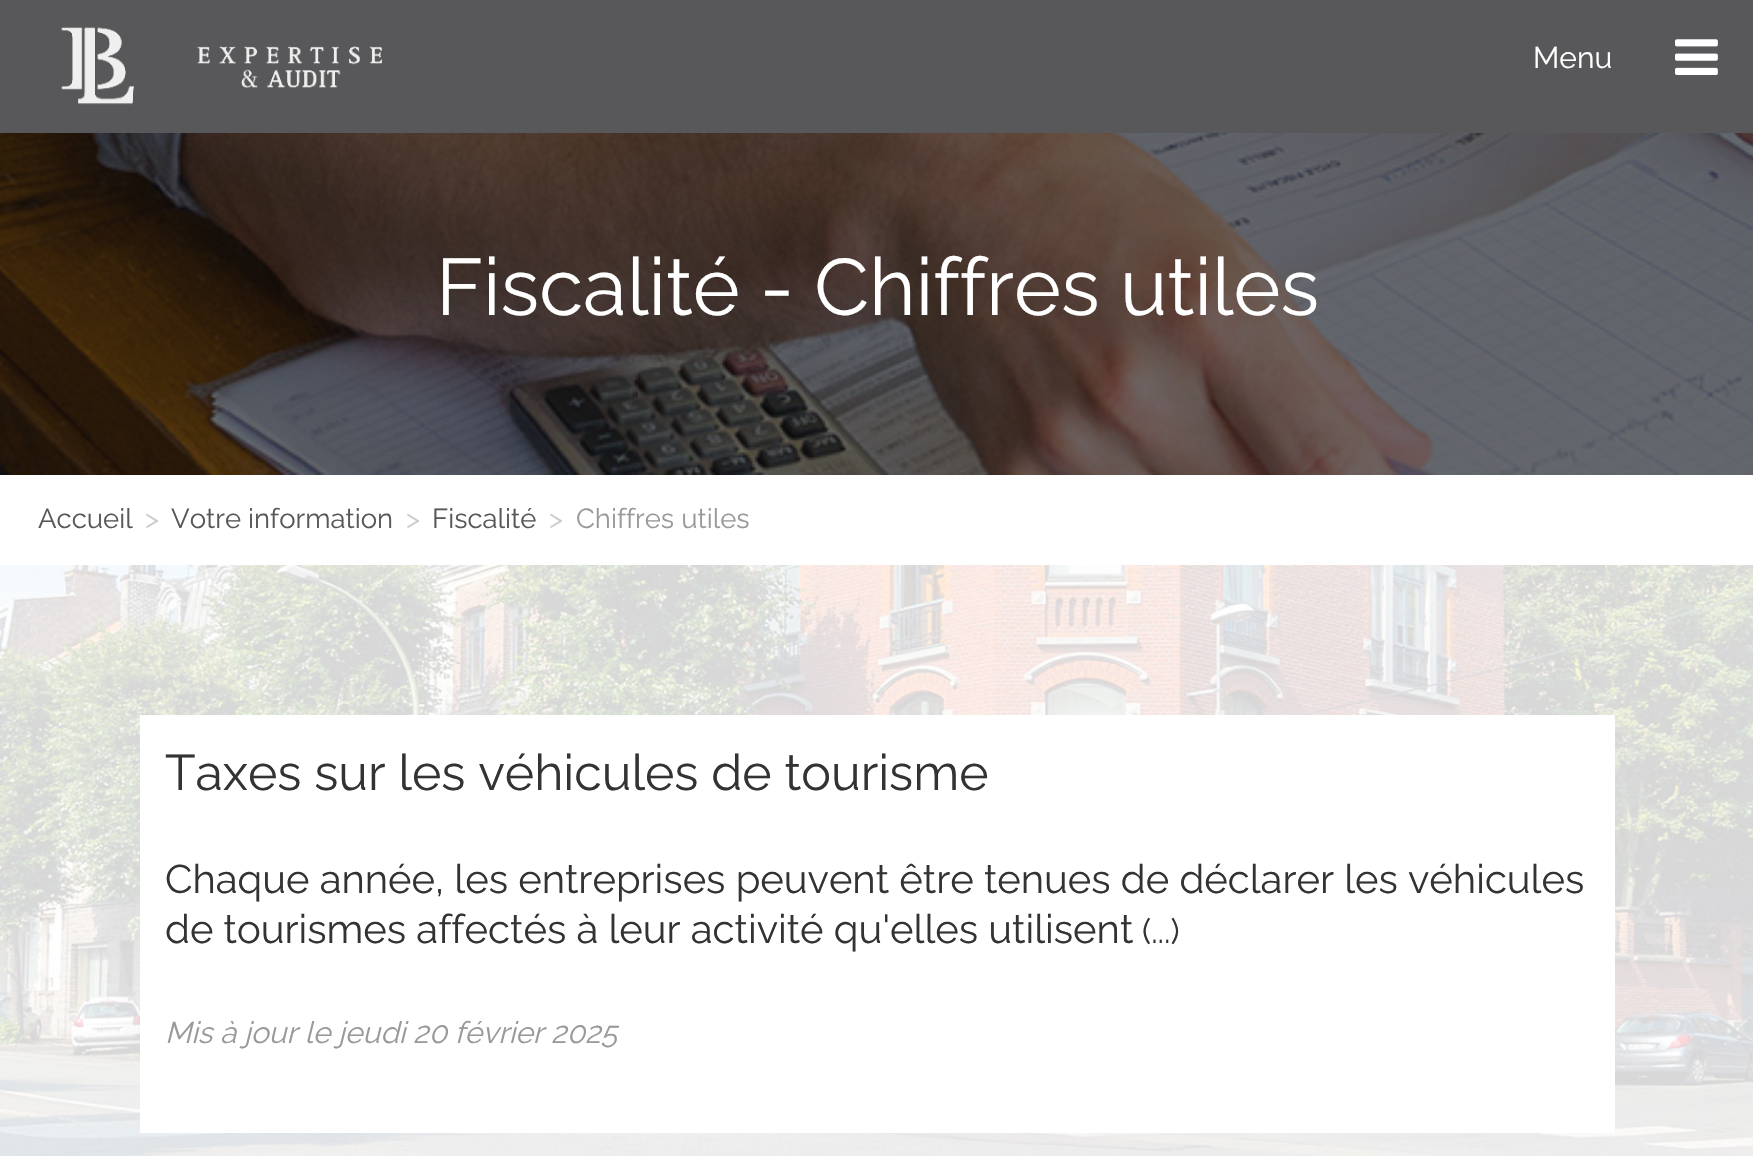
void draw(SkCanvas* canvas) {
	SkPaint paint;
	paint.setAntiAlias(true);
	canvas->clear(0xffffffff);
	paint.setColor(0xff58585a);
	canvas->drawRect(SkRect::MakeXYWH(0, 0, 1753, 133), paint);
	canvas->drawImageRect(SkImages::DeferredFromEncodedData(SkData::MakeFromFileName("img1.png")), SkRect::MakeXYWH(61, 27, 322, 78), SkSamplingOptions());
	SkFont f1(fontMgr->matchFamilyStyle("Raleway", SkFontStyle(100, SkFontStyle::kNormal_Width, SkFontStyle::kUpright_Slant)), 30);
	f1.setSubpixel(true);
	paint.setColor(0xffffffff);
	canvas->drawString("Menu", 1533, 68, f1, paint);
	canvas->drawImageRect(SkImages::DeferredFromEncodedData(SkData::MakeFromFileName("img2.png")), SkRect::MakeXYWH(1675, 39, 43, 36), SkSamplingOptions());
	canvas->drawImageRect(SkImages::DeferredFromEncodedData(SkData::MakeFromFileName("img3.png")), SkRect::MakeXYWH(0, 133, 1753, 342), SkSamplingOptions());
	SkFont f2(fontMgr->matchFamilyStyle("Raleway", SkFontStyle(100, SkFontStyle::kNormal_Width, SkFontStyle::kUpright_Slant)), 80);
	f2.setSubpixel(true);
	canvas->drawString("Fiscalité - Chiffres utiles", 436, 315, f2, paint);
	SkFont f3(fontMgr->matchFamilyStyle("Raleway", SkFontStyle(100, SkFontStyle::kNormal_Width, SkFontStyle::kUpright_Slant)), 27.5);
	f3.setSubpixel(true);
	paint.setColor(0xff58585a);
	canvas->drawString("Accueil", 38, 528, f3, paint);
	paint.setColor(0xffcccccc);
	canvas->drawString(">", 145, 528, f3, paint);
	paint.setColor(0xff58585a);
	canvas->drawString("Votre information", 171, 528, f3, paint);
	paint.setColor(0xffcccccc);
	canvas->drawString(">", 406, 528, f3, paint);
	paint.setColor(0xff58585a);
	canvas->drawString("Fiscalité", 432, 528, f3, paint);
	paint.setColor(0xffcccccc);
	canvas->drawString(">", 549, 528, f3, paint);
	paint.setColor(0xff999999);
	canvas->drawString("Chiffres utiles", 576, 528, f3, paint);
	canvas->drawImageRect(SkImages::DeferredFromEncodedData(SkData::MakeFromFileName("img4.png")), SkRect::MakeXYWH(0, 565, 1753, 591), SkSamplingOptions());
	paint.setColor(0xffffffff);
	canvas->drawRect(SkRect::MakeXYWH(140, 715, 1475, 418), paint);
	SkFont f4(fontMgr->matchFamilyStyle("Raleway", SkFontStyle(100, SkFontStyle::kNormal_Width, SkFontStyle::kUpright_Slant)), 50);
	f4.setSubpixel(true);
	paint.setColor(0xff333333);
	canvas->drawString("Taxes sur les véhicules de tourisme", 165, 790, f4, paint);
	SkFont f5(fontMgr->matchFamilyStyle("Raleway", SkFontStyle(100, SkFontStyle::kNormal_Width, SkFontStyle::kUpright_Slant)), 40);
	f5.setSubpixel(true);
	canvas->drawString("Chaque année, les entreprises peuvent être tenues de déclarer les véhicules", 165, 893, f5, paint);
	canvas->drawString("de tourismes affectés à leur activité qu'elles utilisent", 165, 943, f5, paint);
	SkFont f6(fontMgr->matchFamilyStyle("Raleway", SkFontStyle(100, SkFontStyle::kNormal_Width, SkFontStyle::kUpright_Slant)), 34);
	f6.setSubpixel(true);
	canvas->drawString("(...)", 1142, 943, f6, paint);
	SkFont f7(fontMgr->matchFamilyStyle("Raleway", SkFontStyle(100, SkFontStyle::kNormal_Width, SkFontStyle::kItalic_Slant)), 30);
	f7.setSubpixel(true);
	paint.setColor(0xff999999);
	canvas->drawString("Mis à jour le jeudi 20 février 2025", 165, 1043, f7, paint);
}
